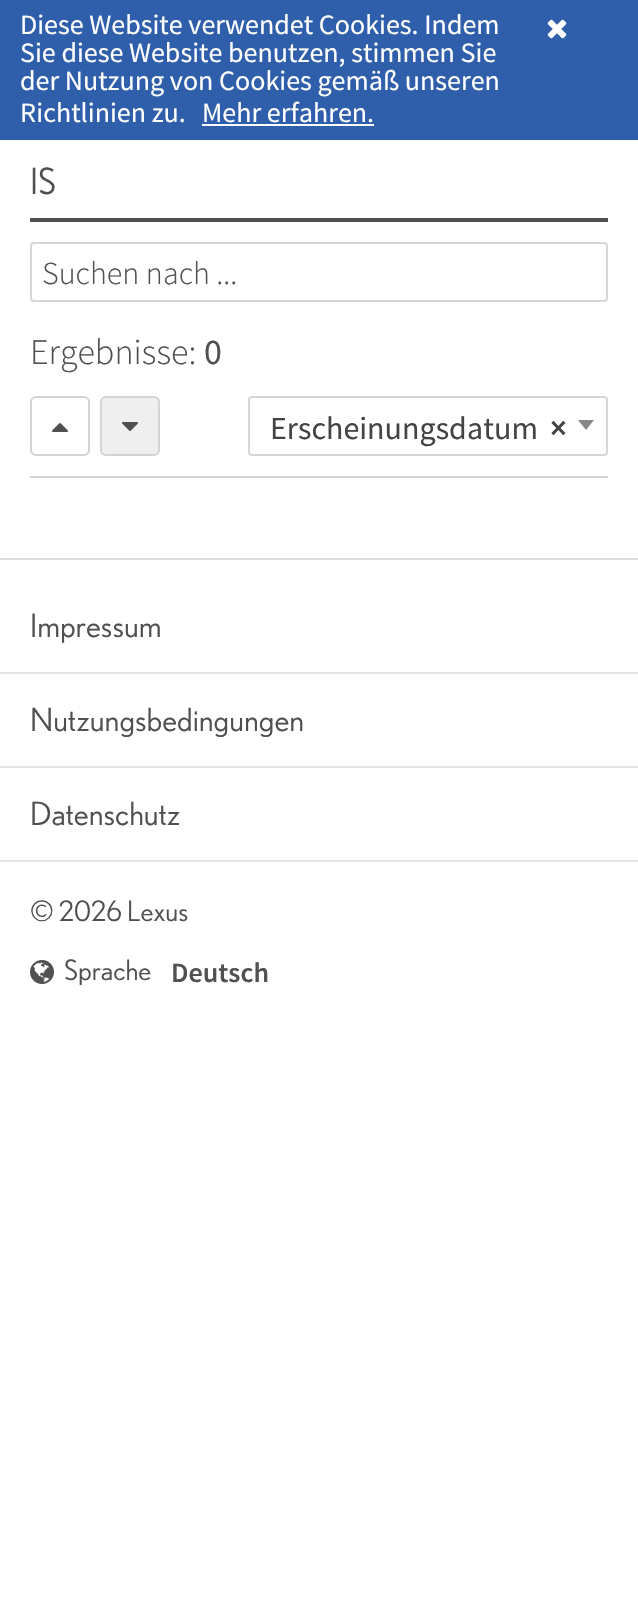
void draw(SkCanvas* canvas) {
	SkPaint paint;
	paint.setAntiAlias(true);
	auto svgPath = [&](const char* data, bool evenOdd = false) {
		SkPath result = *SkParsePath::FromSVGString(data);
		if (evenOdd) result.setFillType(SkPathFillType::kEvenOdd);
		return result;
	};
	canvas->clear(0xffffffff);
	paint.setColor(0xff2f5fab);
	canvas->drawRect(SkRect::MakeXYWH(0, 0, 638, 140), paint);
	SkFont f1(fontMgr->matchFamilyStyle("Source Sans Pro", SkFontStyle::Normal()), 28);
	f1.setSubpixel(true);
	paint.setColor(0xffffffff);
	canvas->drawString("Diese Website verwendet Cookies. Indem", 20, 34, f1, paint);
	canvas->drawImageRect(SkImages::DeferredFromEncodedData(SkData::MakeFromFileName("img1.png")), SkRect::MakeXYWH(547, 19, 20, 20), SkSamplingOptions());
	canvas->drawString("Sie diese Website benutzen, stimmen Sie", 20, 62, f1, paint);
	canvas->drawString("der Nutzung von Cookies gemäß unseren", 20, 90, f1, paint);
	canvas->drawString("Richtlinien zu.", 20, 122, f1, paint);
	canvas->drawString("Mehr erfahren.", 202, 122, f1, paint);
	canvas->drawRect(SkRect::MakeXYWH(202, 124, 172, 2), paint);
	paint.setColor(0xff505050);
	canvas->drawRect(SkRect::MakeXYWH(30, 218, 578, 4), paint);
	SkFont f2(fontMgr->matchFamilyStyle("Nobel", SkFontStyle::Italic()), 36);
	f2.setSubpixel(true);
	canvas->drawString("IS", 30, 194, f2, paint);
	paint.setStroke(true);
	paint.setStrokeWidth(2);
	paint.setColor(0xffd6d6d6);
	canvas->drawRoundRect(SkRect::MakeXYWH(31, 243, 576, 58), 3, 3, paint);
	SkFont f3(fontMgr->matchFamilyStyle("Source Sans Pro", SkFontStyle(300, SkFontStyle::kNormal_Width, SkFontStyle::kUpright_Slant)), 32);
	f3.setSubpixel(true);
	paint.setStroke(false);
	paint.setColor(0xff505050);
	canvas->drawString("Suchen nach ...", 42, 284, f3, paint);
	paint.setColor(0xffd6d6d6);
	canvas->drawRect(SkRect::MakeXYWH(30, 476, 578, 2), paint);
	SkFont f4(fontMgr->matchFamilyStyle("Source Sans Pro", SkFontStyle(300, SkFontStyle::kNormal_Width, SkFontStyle::kUpright_Slant)), 36);
	f4.setSubpixel(true);
	paint.setColor(0xff505050);
	canvas->drawString("Ergebnisse:", 30, 364, f4, paint);
	SkFont f5(fontMgr->matchFamilyStyle("Source Sans Pro", SkFontStyle::Normal()), 36);
	f5.setSubpixel(true);
	canvas->drawString("0", 204, 364, f5, paint);
	paint.setStroke(true);
	paint.setColor(0xffd3d3d3);
	canvas->drawRoundRect(SkRect::MakeXYWH(31, 397, 58, 58), 5, 5, paint);
	canvas->drawImageRect(SkImages::DeferredFromEncodedData(SkData::MakeFromFileName("img2.png")), SkRect::MakeXYWH(52, 423, 16, 9), SkSamplingOptions());
	paint.setStroke(false);
	paint.setColor(0xffefefef);
	canvas->drawRoundRect(SkRect::MakeXYWH(101, 397, 58, 58), 5, 5, paint);
	paint.setStroke(true);
	paint.setColor(0xffd3d3d3);
	canvas->drawRoundRect(SkRect::MakeXYWH(101, 397, 58, 58), 5, 5, paint);
	canvas->drawImageRect(SkImages::DeferredFromEncodedData(SkData::MakeFromFileName("img3.png")), SkRect::MakeXYWH(122, 422, 16, 9), SkSamplingOptions());
	paint.setColor(0xffd6d6d6);
	canvas->drawRoundRect(SkRect::MakeXYWH(249, 397, 358, 58), 3, 3, paint);
	SkFont f6(fontMgr->matchFamilyStyle("Source Sans Pro", SkFontStyle::Normal()), 32);
	f6.setSubpixel(true);
	paint.setStroke(false);
	paint.setColor(0xff444444);
	canvas->drawString("Erscheinungsdatum", 270, 439, f6, paint);
	SkFont f7(fontMgr->matchFamilyStyle("Source Sans Pro", SkFontStyle::Bold()), 32);
	f7.setSubpixel(true);
	canvas->drawString("×", 550, 439, f7, paint);
	paint.setColor(0xff888888);
	canvas->drawPath(svgPath("M578 420H594L586 430Z"), paint);
	paint.setColor(0xffdddddd);
	canvas->drawRect(SkRect::MakeXYWH(0, 558, 638, 2), paint);
	paint.setColor(0xffe6e6e6);
	canvas->drawRect(SkRect::MakeXYWH(0, 672, 638, 2), paint);
	SkFont f8(fontMgr->matchFamilyStyle("Nobel", SkFontStyle::Italic()), 32);
	f8.setSubpixel(true);
	paint.setColor(0xff505050);
	canvas->drawString("Impressum", 30, 637, f8, paint);
	paint.setColor(0xffe6e6e6);
	canvas->drawRect(SkRect::MakeXYWH(0, 766, 638, 2), paint);
	paint.setColor(0xff505050);
	canvas->drawString("Nutzungsbedingungen", 30, 731, f8, paint);
	paint.setColor(0xffe6e6e6);
	canvas->drawRect(SkRect::MakeXYWH(0, 860, 638, 2), paint);
	paint.setColor(0xff505050);
	canvas->drawString("Datenschutz", 30, 825, f8, paint);
	SkFont f9(fontMgr->matchFamilyStyle("Nobel", SkFontStyle::Italic()), 28);
	f9.setSubpixel(true);
	canvas->drawString("© 2026 Lexus", 30, 921, f9, paint);
	canvas->drawImageRect(SkImages::DeferredFromEncodedData(SkData::MakeFromFileName("img4.png")), SkRect::MakeXYWH(30, 960, 24, 24), SkSamplingOptions());
	canvas->drawString("Sprache", 64, 980, f9, paint);
	SkFont f10(fontMgr->matchFamilyStyle("Source Sans Pro", SkFontStyle(600, SkFontStyle::kNormal_Width, SkFontStyle::kUpright_Slant)), 28);
	f10.setSubpixel(true);
	canvas->drawString("Deutsch", 171, 982, f10, paint);
}
